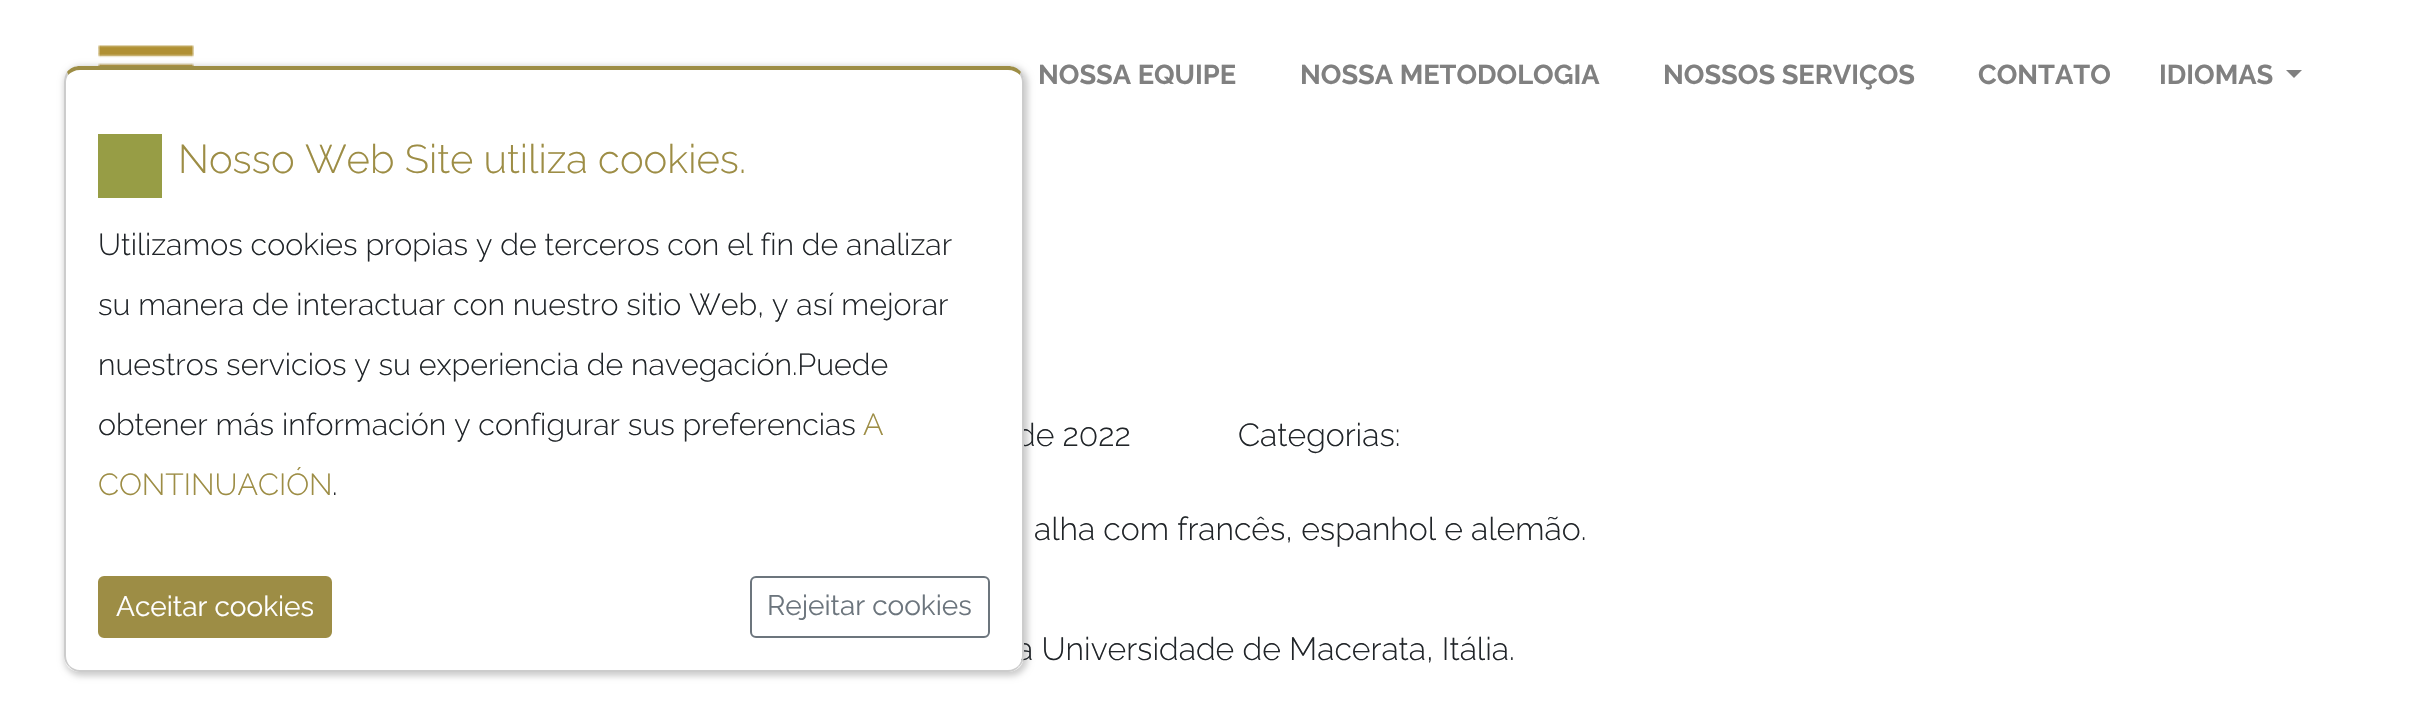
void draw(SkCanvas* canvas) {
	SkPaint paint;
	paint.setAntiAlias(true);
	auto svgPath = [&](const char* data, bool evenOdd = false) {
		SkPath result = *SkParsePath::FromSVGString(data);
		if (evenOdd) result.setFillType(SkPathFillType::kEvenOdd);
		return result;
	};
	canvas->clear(0xffffffff);
	canvas->drawImageRect(SkImages::DeferredFromEncodedData(SkData::MakeFromFileName("img1.png")), SkRect::MakeXYWH(98, 45, 96, 21), SkSamplingOptions());
	SkFont f1(fontMgr->matchFamilyStyle("Raleway", SkFontStyle::Bold()), 27.25);
	f1.setSubpixel(true);
	paint.setColor(0xff808080);
	canvas->drawString("NOSSA EQUIPE", 1038, 84, f1, paint);
	canvas->drawString("NOSSA METODOLOGIA", 1300, 84, f1, paint);
	canvas->drawString("NOSSOS SERVIÇOS", 1663, 84, f1, paint);
	canvas->drawString("CONTATO", 1978, 84, f1, paint);
	canvas->drawString("IDIOMAS", 2159, 84, f1, paint);
	canvas->drawPath(svgPath("M2286 70H2302L2294 78Z"), paint);
	canvas->save();
	canvas->clipPath(svgPath("M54 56H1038V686H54ZM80 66H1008C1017 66 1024 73 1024 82V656C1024 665 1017 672 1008 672H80C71 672 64 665 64 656V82C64 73 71 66 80 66Z", true), true);
	paint.setColor(0x33000000);
	paint.setMaskFilter(SkMaskFilter::MakeBlur(kNormal_SkBlurStyle, 3));
	canvas->drawRoundRect(SkRect::MakeXYWH(64, 66, 964, 610), 18, 18, paint);
	paint.setMaskFilter(nullptr);
	canvas->restore();
	SkFont f2(fontMgr->matchFamilyStyle("Raleway", SkFontStyle(300, SkFontStyle::kNormal_Width, SkFontStyle::kUpright_Slant)), 32);
	f2.setSubpixel(true);
	paint.setColor(0xff212529);
	canvas->drawString("de 2022", 1016, 446, f2, paint);
	canvas->drawString("a Universidade de Macerata, Itália.", 1016, 660, f2, paint);
	paint.setColor(0xffffffff);
	canvas->drawPath(svgPath("M80 70H1008C1016 70 1022 75 1022 82V656C1022 664 1016 670 1008 670H80C72 670 66 664 66 656V82C66 75 72 70 80 70Z"), paint);
	paint.setColor(0xff9d8d45);
	canvas->drawPath(svgPath("M80 66C75 66 70 68 67 72L68 75C71 72 75 70 80 70H1008C1013 70 1017 72 1020 75L1021 72C1018 68 1013 66 1008 66Z"), paint);
	paint.setColor(0xffcccccc);
	canvas->drawPath(svgPath("M1024 656V82C1024 78 1023 75 1021 72L1020 75C1021 77 1022 79 1022 82V656C1022 660 1020 664 1018 666L1019 667C1022 664 1024 660 1024 656Z"), paint);
	canvas->drawPath(svgPath("M80 672H1008C1012 672 1016 670 1019 667L1018 666C1016 668 1012 670 1008 670H80C76 670 72 668 70 666L69 667C72 670 76 672 80 672Z"), paint);
	canvas->drawPath(svgPath("M64 82V656C64 660 66 664 69 667L70 666C68 664 66 660 66 656V82C66 79 67 77 68 75L67 72C65 75 64 78 64 82Z"), paint);
	paint.setColor(0xff979d45);
	canvas->drawRect(SkRect::MakeXYWH(98, 134, 64, 64), paint);
	SkFont f3(fontMgr->matchFamilyStyle("Raleway", SkFontStyle(300, SkFontStyle::kNormal_Width, SkFontStyle::kUpright_Slant)), 40);
	f3.setSubpixel(true);
	paint.setColor(0xff9d8d45);
	canvas->drawString("Nosso Web Site utiliza cookies.", 178, 173, f3, paint);
	SkFont f4(fontMgr->matchFamilyStyle("Raleway", SkFontStyle(300, SkFontStyle::kNormal_Width, SkFontStyle::kUpright_Slant)), 30.4);
	f4.setSubpixel(true);
	paint.setColor(0xff212529);
	canvas->drawString("Utilizamos cookies propias y de terceros con el fin de analizar", 98, 255, f4, paint);
	canvas->drawString("su manera de interactuar con nuestro sitio Web, y así mejorar", 98, 315, f4, paint);
	canvas->drawString("nuestros servicios y su experiencia de navegación.Puede", 98, 375, f4, paint);
	canvas->drawString("obtener más información y configurar sus preferencias", 98, 435, f4, paint);
	paint.setColor(0xff9d8d45);
	canvas->drawString("A", 863, 435, f4, paint);
	canvas->drawString("CONTINUACIÓN", 98, 495, f4, paint);
	paint.setColor(0xff212529);
	canvas->drawString(".", 332, 495, f4, paint);
	paint.setColor(0xff9d8d45);
	canvas->drawRoundRect(SkRect::MakeXYWH(99, 577, 232, 60), 5, 5, paint);
	paint.setStroke(true);
	paint.setStrokeWidth(2);
	canvas->drawRoundRect(SkRect::MakeXYWH(99, 577, 232, 60), 5, 5, paint);
	SkFont f5(fontMgr->matchFamilyStyle("Raleway", SkFontStyle::Normal()), 28);
	f5.setSubpixel(true);
	paint.setStroke(false);
	paint.setColor(0xffffffff);
	canvas->drawString("Aceitar cookies", 116, 616, f5, paint);
	paint.setStroke(true);
	paint.setColor(0xff6c757d);
	canvas->drawRoundRect(SkRect::MakeXYWH(751, 577, 238, 60), 5, 5, paint);
	paint.setStroke(false);
	canvas->drawString("Rejeitar cookies", 767, 615, f5, paint);
	paint.setColor(0xff212529);
	canvas->drawString("Categorias:", 1238, 446, f2, paint);
	canvas->drawString("alha com francês, espanhol e alemão.", 1034, 540, f2, paint);
}
